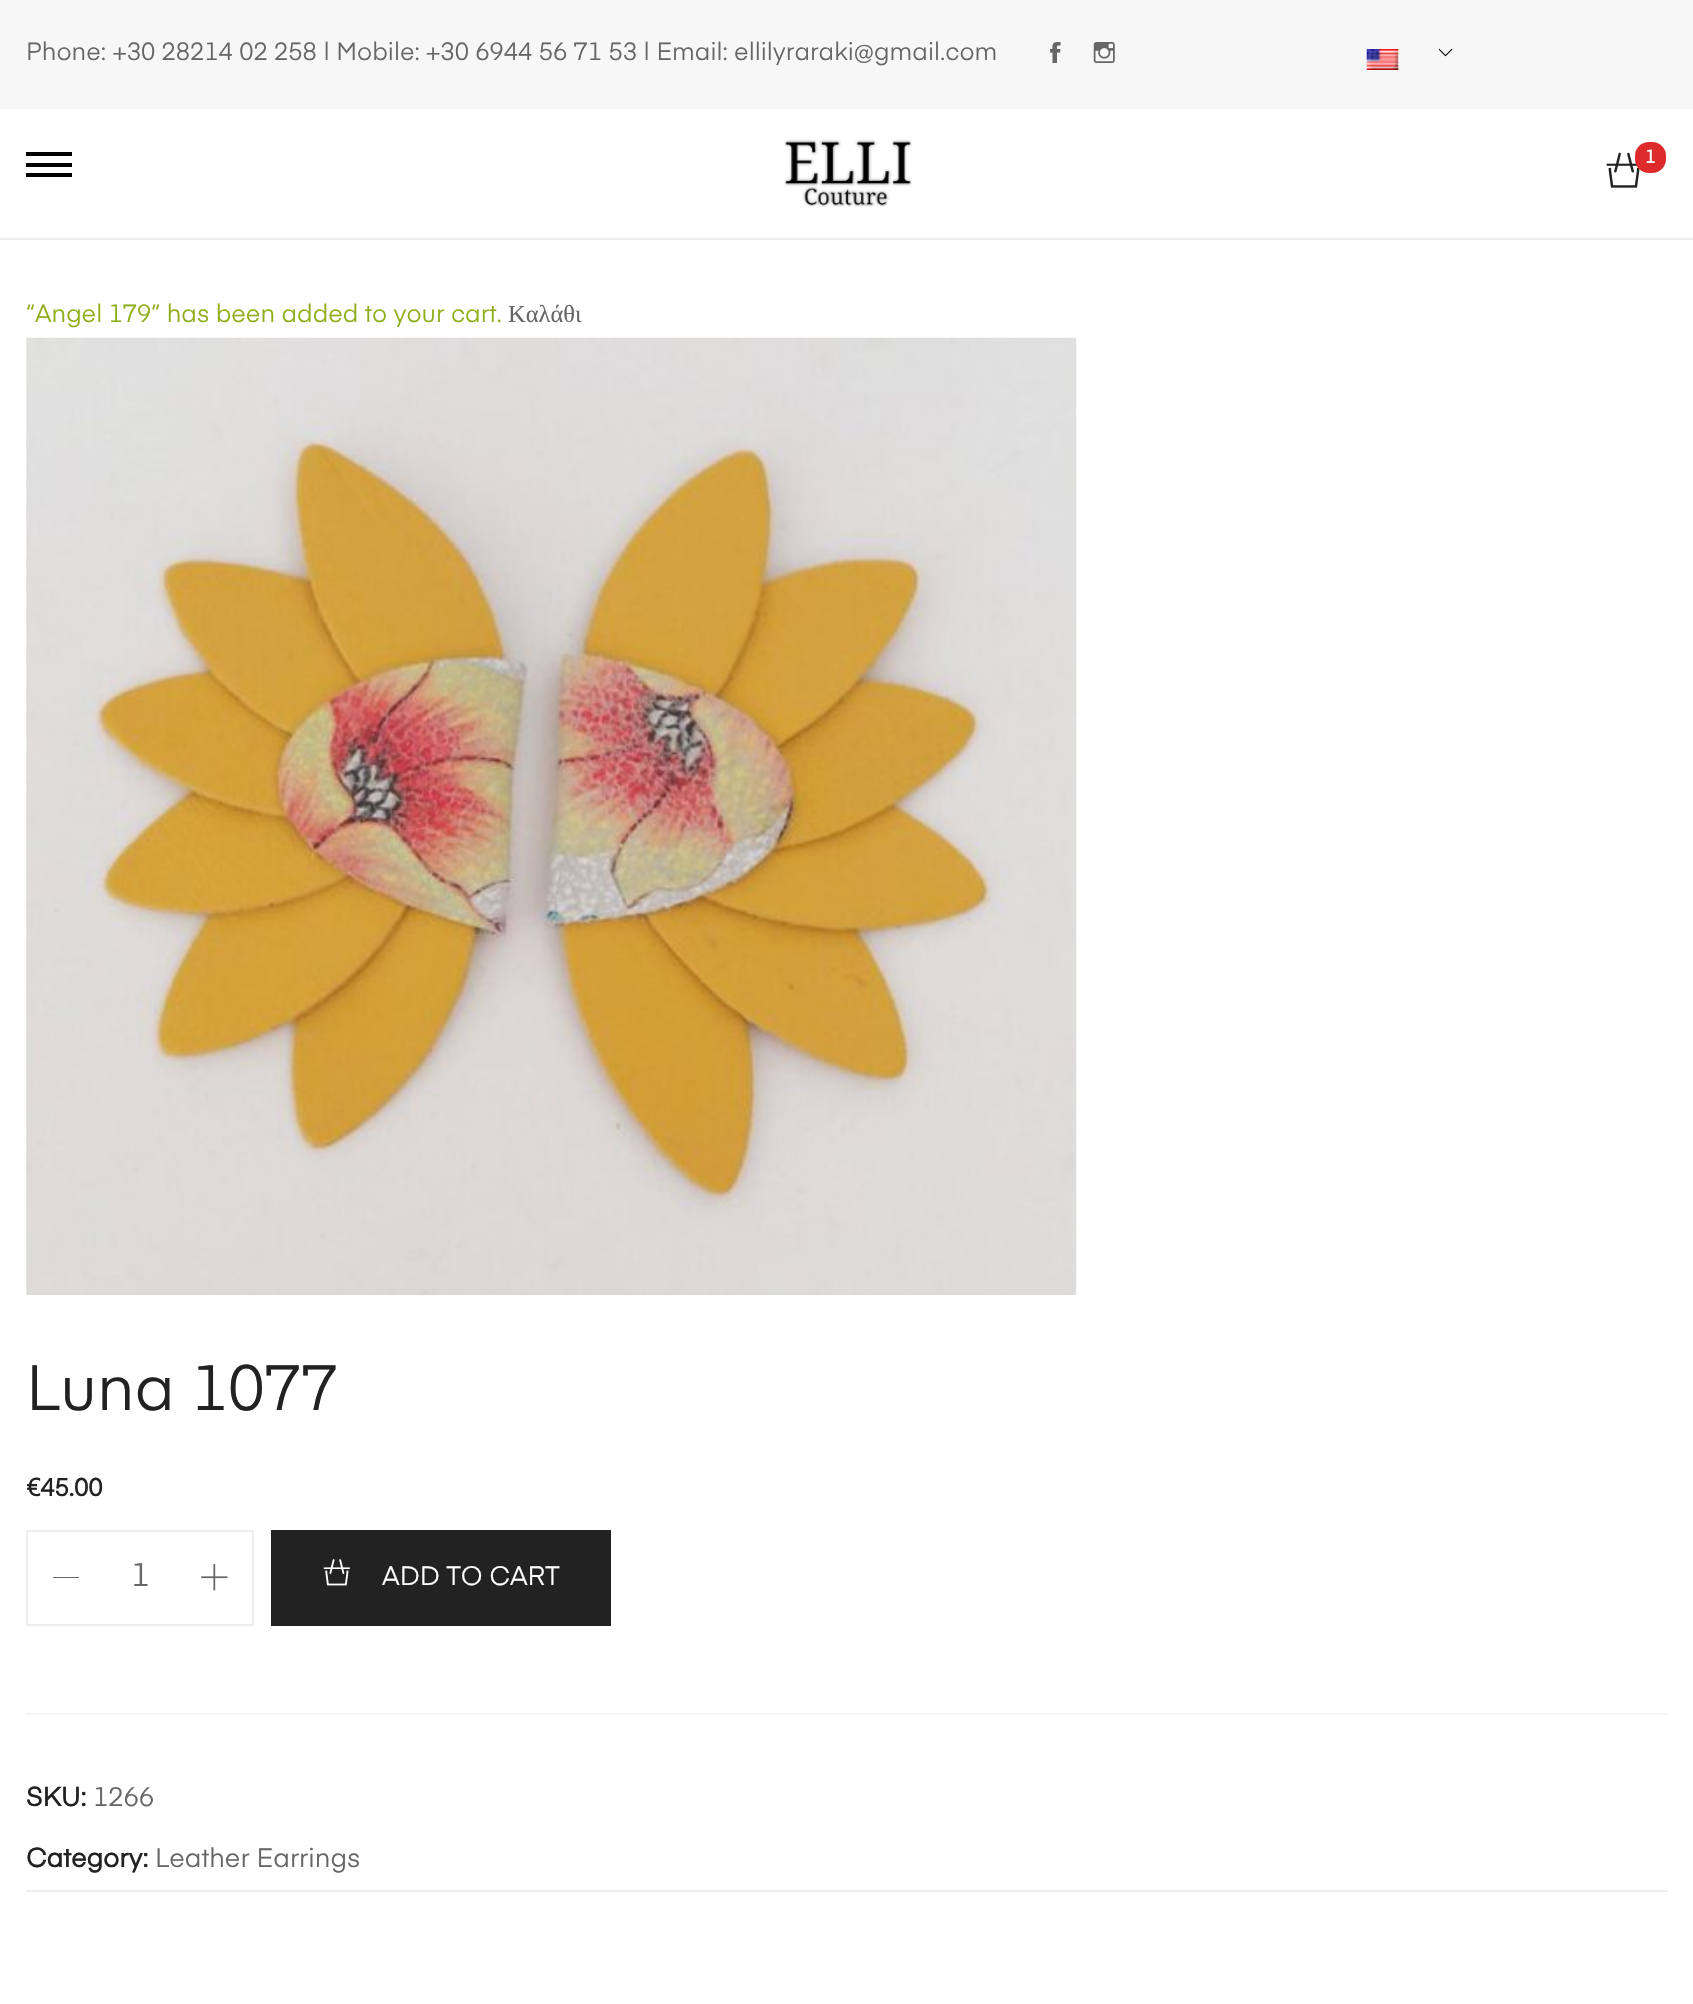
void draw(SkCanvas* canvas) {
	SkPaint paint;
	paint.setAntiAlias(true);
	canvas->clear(0xffffffff);
	paint.setColor(0xfff7f7f7);
	canvas->drawRect(SkRect::MakeXYWH(0, 0, 1693, 109), paint);
	SkFont f1(fontMgr->matchFamilyStyle("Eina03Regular", SkFontStyle::Normal()), 24.5);
	f1.setSubpixel(true);
	paint.setColor(0xff666666);
	canvas->drawString("Phone: +30 28214 02 258 | Mobile: +30 6944 56 71 53 | Email: ellilyraraki@gmail.com", 26, 60, f1, paint);
	canvas->drawImageRect(SkImages::DeferredFromEncodedData(SkData::MakeFromFileName("img1.png")), SkRect::MakeXYWH(1050, 42, 11, 21), SkSamplingOptions());
	canvas->drawImageRect(SkImages::DeferredFromEncodedData(SkData::MakeFromFileName("img2.png")), SkRect::MakeXYWH(1093, 42, 22, 21), SkSamplingOptions());
	canvas->drawImageRect(SkImages::DeferredFromEncodedData(SkData::MakeFromFileName("img3.png")), SkRect::MakeXYWH(1439, 48, 14, 9), SkSamplingOptions());
	canvas->drawImageRect(SkImages::DeferredFromEncodedData(SkData::MakeFromFileName("img4.png")), SkRect::MakeXYWH(1366, 49, 33, 21), SkSamplingOptions());
	paint.setColor(0xffeeeeee);
	canvas->drawRect(SkRect::MakeXYWH(0, 238, 1693, 2), paint);
	paint.setColor(0xff000000);
	canvas->drawRect(SkRect::MakeXYWH(26, 163, 46, 4), paint);
	canvas->drawRect(SkRect::MakeXYWH(26, 152, 46, 4), paint);
	canvas->drawRect(SkRect::MakeXYWH(26, 173, 46, 4), paint);
	canvas->drawImageRect(SkImages::DeferredFromEncodedData(SkData::MakeFromFileName("img5.png")), SkRect::MakeXYWH(784, 139, 128, 68), SkSamplingOptions());
	canvas->drawImageRect(SkImages::DeferredFromEncodedData(SkData::MakeFromFileName("img6.png")), SkRect::MakeXYWH(1606, 152, 34, 36), SkSamplingOptions());
	paint.setColor(0xffdd2a2a);
	canvas->drawRoundRect(SkRect::MakeXYWH(1635, 142, 31, 31), 14, 14, paint);
	SkFont f2(fontMgr->matchFamilyStyle("Eina03Regular", SkFontStyle::Bold()), 18);
	f2.setSubpixel(true);
	paint.setColor(0xffffffff);
	canvas->drawString("1", 1645, 163, f2, paint);
	paint.setColor(0xff8fae1b);
	canvas->drawString("“Angel 179” has been added to your cart.", 26, 322, f1, paint);
	SkFont f3(fontMgr->matchFamilyStyle("Liberation Serif", SkFontStyle::Normal()), 24.5);
	f3.setSubpixel(true);
	paint.setColor(0xff666666);
	canvas->drawString("Καλάθι", 508, 322, f3, paint);
	canvas->drawImageRect(SkImages::DeferredFromEncodedData(SkData::MakeFromFileName("img7.png")), SkRect::MakeXYWH(26, 337, 1051, 958), SkSamplingOptions());
	SkFont f4(fontMgr->matchFamilyStyle("Eina03Regular", SkFontStyle::Normal()), 63);
	f4.setSubpixel(true);
	paint.setColor(0xff222222);
	canvas->drawString("Luna 1077", 26, 1410, f4, paint);
	SkFont f5(fontMgr->matchFamilyStyle("Eina03Regular", SkFontStyle::Bold()), 24.5);
	f5.setSubpixel(true);
	canvas->drawString("€45.00", 26, 1496, f5, paint);
	paint.setStroke(true);
	paint.setStrokeWidth(2);
	paint.setColor(0xffeeeeee);
	canvas->drawRect(SkRect::MakeXYWH(27, 1531, 226, 94), paint);
	paint.setStroke(false);
	paint.setColor(0xff666666);
	canvas->drawRect(SkRect::MakeXYWH(53, 1577, 26, 1), paint);
	SkFont f6(fontMgr->matchFamilyStyle("Eina03Regular", SkFontStyle::Normal()), 32);
	f6.setSubpixel(true);
	canvas->drawString("1", 131, 1586, f6, paint);
	canvas->drawImageRect(SkImages::DeferredFromEncodedData(SkData::MakeFromFileName("img8.png")), SkRect::MakeXYWH(201, 1564, 27, 27), SkSamplingOptions());
	paint.setColor(0xff222222);
	canvas->drawRect(SkRect::MakeXYWH(271, 1530, 340, 96), paint);
	canvas->drawImageRect(SkImages::DeferredFromEncodedData(SkData::MakeFromFileName("img9.png")), SkRect::MakeXYWH(323, 1559, 27, 27), SkSamplingOptions());
	SkFont f7(fontMgr->matchFamilyStyle("Eina03Regular", SkFontStyle::Normal()), 26.25);
	f7.setSubpixel(true);
	paint.setColor(0xffffffff);
	canvas->drawString("ADD TO CART", 382, 1585, f7, paint);
	paint.setColor(0xfff8f5f5);
	canvas->drawRect(SkRect::MakeXYWH(26, 1713, 1642, 2), paint);
	SkFont f8(fontMgr->matchFamilyStyle("Eina03Regular", SkFontStyle::Bold()), 26.25);
	f8.setSubpixel(true);
	paint.setColor(0xff222222);
	canvas->drawString("SKU:", 26, 1806, f8, paint);
	paint.setColor(0xff666666);
	canvas->drawString("1266", 93, 1806, f7, paint);
	paint.setColor(0xff222222);
	canvas->drawString("Category:", 26, 1867, f8, paint);
	paint.setColor(0xff666666);
	canvas->drawString("Leather Earrings", 155, 1867, f7, paint);
	paint.setColor(0xffeeeeee);
	canvas->drawRect(SkRect::MakeXYWH(26, 1890, 1642, 2), paint);
}
